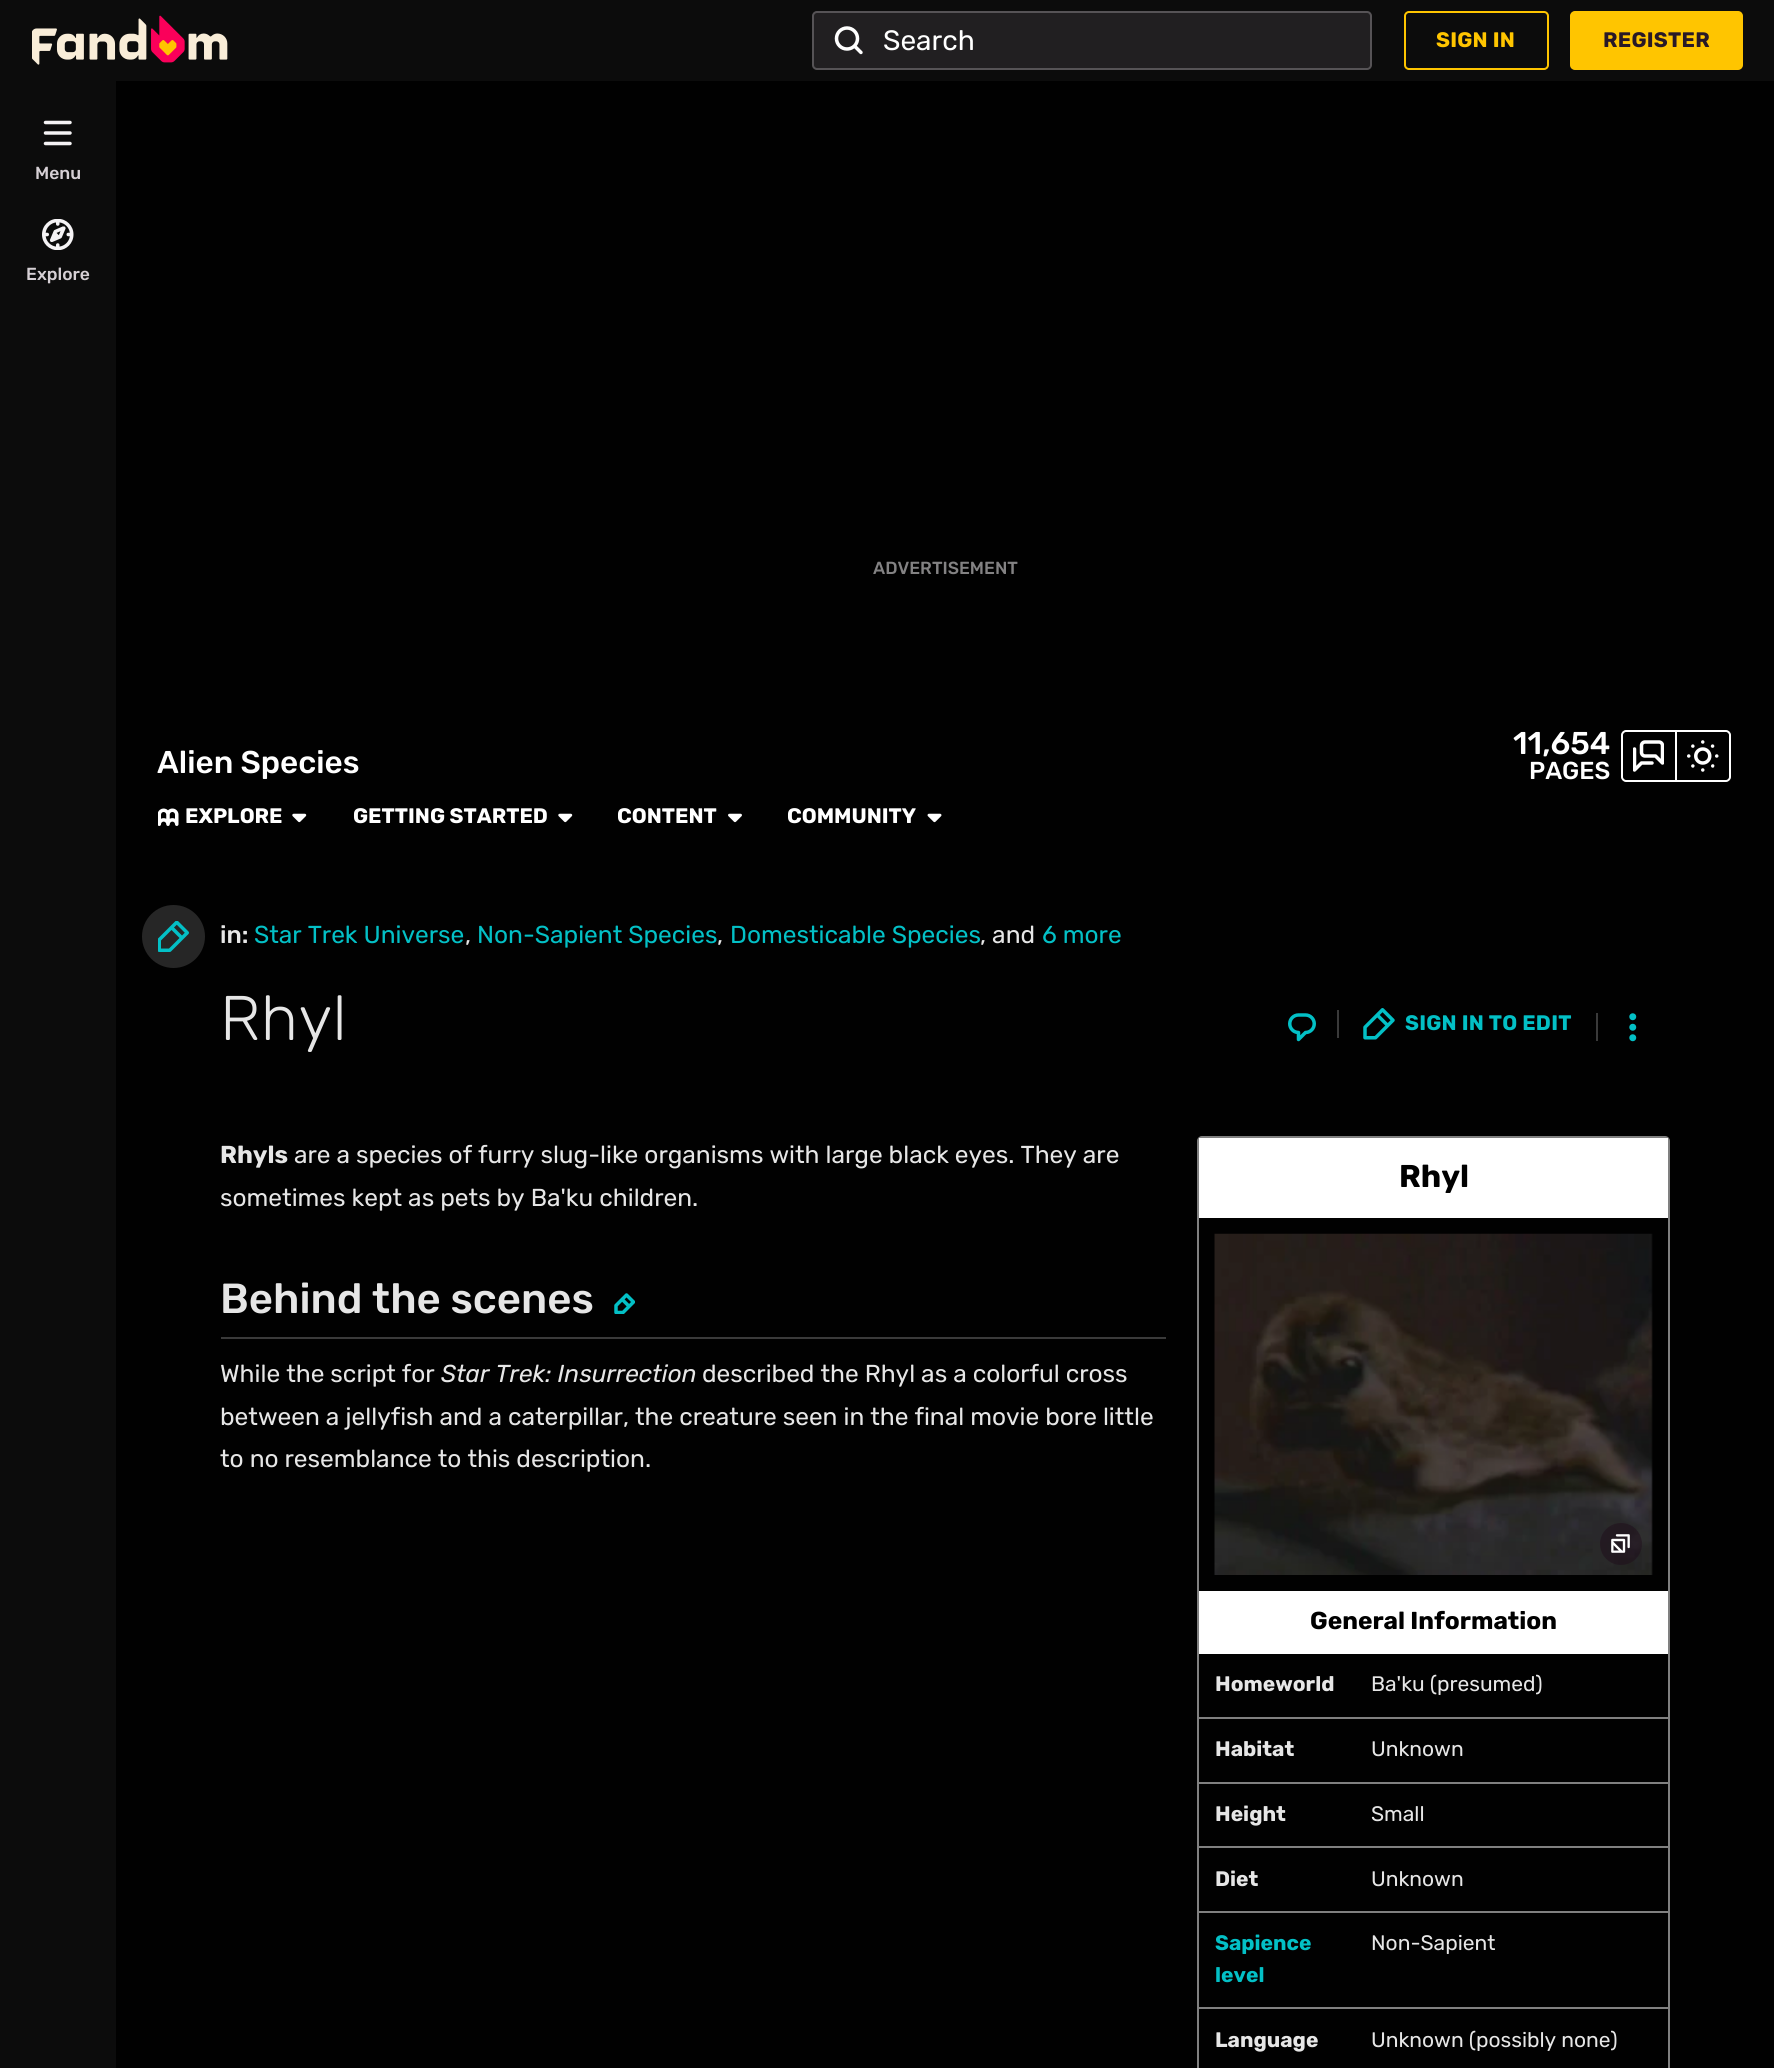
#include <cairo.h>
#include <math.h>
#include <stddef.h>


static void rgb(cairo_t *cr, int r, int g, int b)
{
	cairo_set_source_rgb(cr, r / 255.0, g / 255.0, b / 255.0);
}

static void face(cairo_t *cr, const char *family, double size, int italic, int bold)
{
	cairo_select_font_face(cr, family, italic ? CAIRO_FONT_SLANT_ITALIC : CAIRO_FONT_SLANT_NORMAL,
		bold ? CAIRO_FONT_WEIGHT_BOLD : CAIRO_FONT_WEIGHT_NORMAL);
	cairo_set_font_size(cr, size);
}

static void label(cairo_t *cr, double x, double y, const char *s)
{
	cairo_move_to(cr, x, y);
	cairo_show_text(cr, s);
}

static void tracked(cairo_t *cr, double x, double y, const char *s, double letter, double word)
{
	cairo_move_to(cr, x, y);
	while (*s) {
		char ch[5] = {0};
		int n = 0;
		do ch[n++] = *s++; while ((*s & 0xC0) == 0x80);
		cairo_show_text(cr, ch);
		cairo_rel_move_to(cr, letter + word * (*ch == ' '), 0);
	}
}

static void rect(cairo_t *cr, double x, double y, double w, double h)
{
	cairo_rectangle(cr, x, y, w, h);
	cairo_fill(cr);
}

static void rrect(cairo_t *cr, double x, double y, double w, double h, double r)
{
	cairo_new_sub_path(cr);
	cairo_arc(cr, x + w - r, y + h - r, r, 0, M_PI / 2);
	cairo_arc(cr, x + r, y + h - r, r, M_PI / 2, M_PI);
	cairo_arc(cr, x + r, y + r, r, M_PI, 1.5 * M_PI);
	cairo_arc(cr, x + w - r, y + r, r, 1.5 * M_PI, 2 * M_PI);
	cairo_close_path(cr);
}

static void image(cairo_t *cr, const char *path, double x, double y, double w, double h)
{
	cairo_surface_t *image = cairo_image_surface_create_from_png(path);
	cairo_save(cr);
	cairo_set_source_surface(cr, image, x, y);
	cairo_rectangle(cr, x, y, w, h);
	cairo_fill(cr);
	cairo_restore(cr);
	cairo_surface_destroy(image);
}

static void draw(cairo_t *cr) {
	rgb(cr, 1, 1, 1);
	cairo_paint(cr);
	rgb(cr, 12, 12, 12);
	rect(cr, 0, 0, 1774, 81);
	image(cr, "image0.png", 32, 15, 196, 50);
	rgb(cr, 33, 31, 33);
	rrect(cr, 812, 11, 560, 59, 5);
	cairo_fill(cr);
	rrect(cr, 813, 12, 558, 57, 4);
	cairo_set_source_rgba(cr, 0.961, 0.953, 0.961, 0.25);
	cairo_stroke(cr);
	image(cr, "image1.png", 834, 26, 29, 29);
	face(cr, "Rubik", 28, 0, 0);
	rgb(cr, 255, 255, 255);
	label(cr, 883, 50, "Search");
	rrect(cr, 1405, 12, 143, 57, 4);
	rgb(cr, 255, 197, 0);
	cairo_stroke(cr);
	face(cr, "Rubik", 21, 0, 1);
	tracked(cr, 1436, 47, "SIGN IN", 0.25, 0);
	rrect(cr, 1571, 12, 171, 57, 4);
	cairo_fill_preserve(cr);
	cairo_stroke(cr);
	rgb(cr, 41, 25, 39);
	tracked(cr, 1603, 47, "REGISTER", 0.25, 0);
	rgb(cr, 12, 12, 12);
	rect(cr, 0, 81, 116, 1987);
	image(cr, "image2.png", 43, 120, 29, 26);
	face(cr, "Rubik Medium", 17.5, 0, 0);
	rgb(cr, 214, 208, 213);
	label(cr, 35, 179, "Menu");
	image(cr, "image3.png", 42, 219, 32, 31);
	label(cr, 26, 280, "Explore");
	rgb(cr, 131, 130, 131);
	label(cr, 873, 574, "ADVERTISEMENT");
	face(cr, "Rubik Medium", 31.5, 0, 0);
	rgb(cr, 255, 255, 255);
	label(cr, 157, 773, "Alien Species");
	label(cr, 1513, 754, "11,654");
	face(cr, "Rubik Medium", 24.5, 0, 0);
	label(cr, 1529, 779, "PAGES");
	cairo_new_path(cr);
	cairo_move_to(cr, 1626, 731);
	cairo_line_to(cr, 1676, 731);
	cairo_line_to(cr, 1676, 781);
	cairo_line_to(cr, 1626, 781);
	cairo_curve_to(cr, 1624, 781, 1622, 779, 1622, 777);
	cairo_line_to(cr, 1622, 735);
	cairo_curve_to(cr, 1622, 733, 1624, 731, 1626, 731);
	cairo_close_path(cr);
	cairo_stroke(cr);
	image(cr, "image4.png", 1633, 740, 31, 32);
	cairo_new_path(cr);
	cairo_move_to(cr, 1676, 731);
	cairo_line_to(cr, 1726, 731);
	cairo_curve_to(cr, 1728, 731, 1730, 733, 1730, 735);
	cairo_line_to(cr, 1730, 777);
	cairo_curve_to(cr, 1730, 779, 1728, 781, 1726, 781);
	cairo_line_to(cr, 1676, 781);
	cairo_close_path(cr);
	cairo_stroke(cr);
	image(cr, "image5.png", 1687, 740, 32, 32);
	image(cr, "image6.png", 158, 808, 21, 18);
	face(cr, "Rubik", 21, 0, 1);
	label(cr, 185, 823, "EXPLORE");
	image(cr, "image7.png", 292, 813, 15, 10);
	label(cr, 353, 823, "GETTING STARTED");
	image(cr, "image7.png", 558, 813, 15, 10);
	label(cr, 617, 823, "CONTENT");
	image(cr, "image8.png", 728, 813, 14, 10);
	label(cr, 787, 823, "COMMUNITY");
	image(cr, "image9.png", 927, 813, 15, 10);
	rgb(cr, 38, 38, 38);
	cairo_arc(cr, 173.5, 936.5, 31.5, 0, 2 * M_PI);
	cairo_fill(cr);
	image(cr, "image10.png", 158, 921, 31, 31);
	face(cr, "Rubik Medium", 24.5, 0, 0);
	rgb(cr, 230, 230, 230);
	label(cr, 220, 943, "in:");
	face(cr, "Rubik", 24.5, 0, 0);
	rgb(cr, 3, 192, 198);
	label(cr, 254, 943, "Star Trek Universe");
	rgb(cr, 230, 230, 230);
	label(cr, 465, 943, ",");
	rgb(cr, 3, 192, 198);
	label(cr, 477, 943, "Non-Sapient Species");
	rgb(cr, 230, 230, 230);
	label(cr, 717, 943, ",");
	rgb(cr, 3, 192, 198);
	label(cr, 730, 943, "Domesticable Species");
	rgb(cr, 230, 230, 230);
	label(cr, 980, 943, ", and");
	rgb(cr, 3, 192, 198);
	label(cr, 1042, 943, "6 more");
	face(cr, "Rubik Light", 63, 0, 0);
	rgb(cr, 230, 230, 230);
	tracked(cr, 220, 1040, "Rhyl", 0.5, 0);
	image(cr, "image11.png", 1288, 1013, 28, 29);
	rgb(cr, 58, 58, 58);
	rect(cr, 1337, 1010, 2, 28);
	image(cr, "image12.png", 1363, 1008, 32, 32);
	face(cr, "Rubik", 21, 0, 1);
	rgb(cr, 3, 192, 198);
	tracked(cr, 1405, 1030, "SIGN IN TO EDIT", 0.25, 0);
	rgb(cr, 58, 58, 58);
	rect(cr, 1596, 1013, 2, 28);
	image(cr, "image13.png", 1629, 1013, 8, 29);
	face(cr, "Rubik", 24.5, 0, 1);
	rgb(cr, 230, 230, 230);
	label(cr, 220, 1163, "Rhyls");
	face(cr, "Rubik", 24.5, 0, 0);
	label(cr, 294, 1163, "are a species of furry slug-like organisms with large black eyes. They are");
	label(cr, 220, 1206, "sometimes kept as pets by Ba'ku children.");
	rrect(cr, 1198, 1137, 471, 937, 4);
	rgb(cr, 128, 128, 128);
	cairo_stroke(cr);
	rgb(cr, 255, 255, 255);
	rect(cr, 1199, 1138, 469, 80);
	face(cr, "Rubik", 31.5, 0, 1);
	rgb(cr, 0, 0, 0);
	label(cr, 1399, 1187, "Rhyl");
	image(cr, "image14.png", 1214, 1233, 439, 342);
	cairo_set_source_rgba(cr, 0.118, 0.047, 0.106, 0.5);
	cairo_arc(cr, 1621, 1544, 21, 0, 2 * M_PI);
	cairo_fill(cr);
	image(cr, "image15.png", 1611, 1534, 19, 19);
	rgb(cr, 255, 255, 255);
	rect(cr, 1199, 1591, 469, 63);
	face(cr, "Rubik", 24.5, 0, 1);
	rgb(cr, 0, 0, 0);
	label(cr, 1310, 1629, "General Information");
	face(cr, "Rubik", 21, 0, 1);
	rgb(cr, 230, 230, 230);
	label(cr, 1215, 1691, "Homeworld");
	face(cr, "Rubik", 21, 0, 0);
	label(cr, 1371, 1691, "Ba'ku (presumed)");
	rgb(cr, 128, 128, 128);
	rect(cr, 1199, 1717, 469, 2);
	face(cr, "Rubik", 21, 0, 1);
	rgb(cr, 230, 230, 230);
	label(cr, 1215, 1756, "Habitat");
	face(cr, "Rubik", 21, 0, 0);
	label(cr, 1371, 1756, "Unknown");
	rgb(cr, 128, 128, 128);
	rect(cr, 1199, 1782, 469, 2);
	face(cr, "Rubik", 21, 0, 1);
	rgb(cr, 230, 230, 230);
	label(cr, 1215, 1821, "Height");
	face(cr, "Rubik", 21, 0, 0);
	label(cr, 1371, 1821, "Small");
	rgb(cr, 128, 128, 128);
	rect(cr, 1199, 1846, 469, 2);
	face(cr, "Rubik", 21, 0, 1);
	rgb(cr, 230, 230, 230);
	label(cr, 1215, 1886, "Diet");
	face(cr, "Rubik", 21, 0, 0);
	label(cr, 1371, 1886, "Unknown");
	rgb(cr, 128, 128, 128);
	rect(cr, 1199, 1911, 469, 2);
	face(cr, "Rubik", 21, 0, 1);
	rgb(cr, 3, 192, 198);
	label(cr, 1215, 1950, "Sapience");
	label(cr, 1215, 1982, "level");
	face(cr, "Rubik", 21, 0, 0);
	rgb(cr, 230, 230, 230);
	label(cr, 1371, 1950, "Non-Sapient");
	rgb(cr, 128, 128, 128);
	rect(cr, 1199, 2007, 469, 2);
	face(cr, "Rubik", 21, 0, 1);
	rgb(cr, 230, 230, 230);
	label(cr, 1215, 2047, "Language");
	face(cr, "Rubik", 21, 0, 0);
	label(cr, 1371, 2047, "Unknown (possibly none)");
	rgb(cr, 58, 58, 58);
	rect(cr, 221, 1337, 945, 2);
	face(cr, "Rubik Medium", 42, 0, 0);
	rgb(cr, 230, 230, 230);
	label(cr, 220, 1313, "Behind the scenes");
	image(cr, "image16.png", 614, 1293, 21, 21);
	face(cr, "Rubik", 24.5, 0, 0);
	label(cr, 220, 1382, "While the script for");
	face(cr, "Rubik", 24.5, 1, 0);
	label(cr, 441, 1382, "Star Trek: Insurrection");
	face(cr, "Rubik", 24.5, 0, 0);
	label(cr, 702, 1382, "described the Rhyl as a colorful cross");
	label(cr, 220, 1425, "between a jellyfish and a caterpillar, the creature seen in the final movie bore little");
	label(cr, 220, 1467, "to no resemblance to this description.");
}

int main(void) {
	cairo_surface_t *surface = cairo_image_surface_create(CAIRO_FORMAT_RGB24, 1774, 2068);
	cairo_t *cr = cairo_create(surface);
	cairo_font_options_t *options = cairo_font_options_create();
	cairo_font_options_set_hint_metrics(options, CAIRO_HINT_METRICS_OFF);
	cairo_font_options_set_hint_style(options, CAIRO_HINT_STYLE_NONE);
	cairo_set_font_options(cr, options);
	cairo_set_miter_limit(cr, 4);
	draw(cr);
	cairo_surface_write_to_png(surface, "render.png");
	cairo_font_options_destroy(options);
	cairo_destroy(cr);
	cairo_surface_destroy(surface);
	return 0;
}
